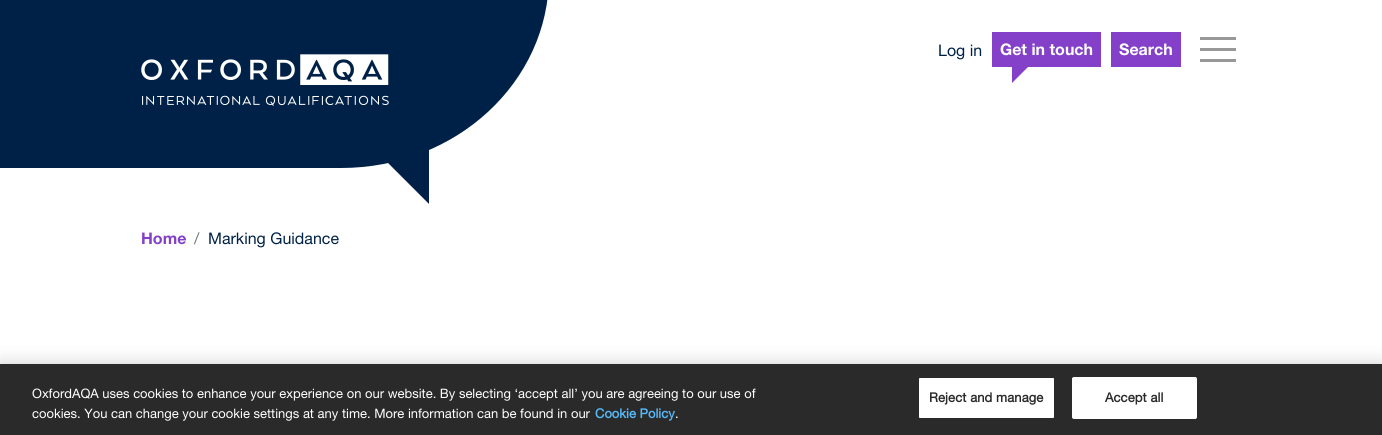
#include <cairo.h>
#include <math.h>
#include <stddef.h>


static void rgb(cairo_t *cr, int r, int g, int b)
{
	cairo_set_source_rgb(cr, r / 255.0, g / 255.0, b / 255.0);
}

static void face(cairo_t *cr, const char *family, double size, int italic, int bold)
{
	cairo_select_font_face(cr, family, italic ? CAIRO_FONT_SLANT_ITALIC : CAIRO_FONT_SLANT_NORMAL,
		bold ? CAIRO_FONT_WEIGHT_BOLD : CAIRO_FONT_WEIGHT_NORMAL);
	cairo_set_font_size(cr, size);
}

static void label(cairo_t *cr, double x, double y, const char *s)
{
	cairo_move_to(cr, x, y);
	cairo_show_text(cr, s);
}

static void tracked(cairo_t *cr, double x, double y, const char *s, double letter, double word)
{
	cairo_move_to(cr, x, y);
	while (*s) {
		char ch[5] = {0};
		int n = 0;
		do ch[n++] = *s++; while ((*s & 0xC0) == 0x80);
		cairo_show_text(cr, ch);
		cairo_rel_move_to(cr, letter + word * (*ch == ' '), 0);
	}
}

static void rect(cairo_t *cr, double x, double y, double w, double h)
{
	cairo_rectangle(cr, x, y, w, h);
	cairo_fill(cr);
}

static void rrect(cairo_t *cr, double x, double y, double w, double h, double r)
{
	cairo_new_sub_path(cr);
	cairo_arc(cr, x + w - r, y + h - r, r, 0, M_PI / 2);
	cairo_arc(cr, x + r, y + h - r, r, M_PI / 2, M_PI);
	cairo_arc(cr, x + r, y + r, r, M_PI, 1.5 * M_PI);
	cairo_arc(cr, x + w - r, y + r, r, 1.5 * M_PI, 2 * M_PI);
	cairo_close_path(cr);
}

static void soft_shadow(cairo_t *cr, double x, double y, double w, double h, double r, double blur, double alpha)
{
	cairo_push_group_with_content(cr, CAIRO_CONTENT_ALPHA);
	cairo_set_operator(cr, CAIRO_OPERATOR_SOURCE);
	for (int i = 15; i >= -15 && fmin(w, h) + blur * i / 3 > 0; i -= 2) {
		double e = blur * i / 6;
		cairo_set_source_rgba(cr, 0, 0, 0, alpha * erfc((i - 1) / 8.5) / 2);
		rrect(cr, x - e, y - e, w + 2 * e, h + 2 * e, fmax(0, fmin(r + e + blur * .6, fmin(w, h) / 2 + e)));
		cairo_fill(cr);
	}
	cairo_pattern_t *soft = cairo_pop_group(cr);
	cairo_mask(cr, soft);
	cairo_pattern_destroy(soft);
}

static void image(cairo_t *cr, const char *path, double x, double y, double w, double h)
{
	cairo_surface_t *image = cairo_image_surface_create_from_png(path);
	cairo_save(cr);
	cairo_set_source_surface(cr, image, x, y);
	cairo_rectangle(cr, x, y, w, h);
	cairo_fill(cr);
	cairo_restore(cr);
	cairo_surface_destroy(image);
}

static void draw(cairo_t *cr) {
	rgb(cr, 255, 255, 255);
	cairo_paint(cr);
	rgb(cr, 0, 33, 71);
	cairo_new_path(cr);
	cairo_move_to(cr, -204, -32);
	cairo_line_to(cr, 549, -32);
	cairo_line_to(cr, 549, -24);
	cairo_curve_to(cr, 549, 82, 456, 168, 341, 168);
	cairo_line_to(cr, -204, 168);
	cairo_close_path(cr);
	cairo_fill(cr);
	image(cr, "image0.png", 141, 54, 248, 52);
	cairo_new_path(cr);
	cairo_move_to(cr, 429, 108);
	cairo_line_to(cr, 429, 204);
	cairo_line_to(cr, 381, 156);
	cairo_close_path(cr);
	cairo_fill(cr);
	face(cr, "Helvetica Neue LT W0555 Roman", 16, 0, 0);
	label(cr, 938, 56, "Log in");
	rgb(cr, 132, 64, 200);
	rect(cr, 992, 32, 109, 35);
	face(cr, "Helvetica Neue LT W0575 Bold", 16, 0, 1);
	rgb(cr, 255, 255, 255);
	label(cr, 1000, 55, "Get in touch");
	rgb(cr, 132, 64, 200);
	cairo_new_path(cr);
	cairo_move_to(cr, 1012, 67);
	cairo_line_to(cr, 1028, 67);
	cairo_line_to(cr, 1012, 83);
	cairo_close_path(cr);
	cairo_fill(cr);
	rect(cr, 1111, 32, 70, 35);
	rgb(cr, 255, 255, 255);
	label(cr, 1119, 55, "Search");
	rgb(cr, 152, 152, 152);
	rect(cr, 1200, 37, 36, 3);
	rect(cr, 1200, 48, 36, 3);
	rect(cr, 1200, 59, 36, 3);
	rgb(cr, 132, 64, 200);
	label(cr, 141, 244, "Home");
	face(cr, "Helvetica Neue LT W0555 Roman", 16, 0, 0);
	rgb(cr, 108, 117, 125);
	label(cr, 194, 244, "/");
	rgb(cr, 0, 33, 71);
	label(cr, 208, 244, "Marking Guidance");
	rgb(cr, 0, 0, 0);
	soft_shadow(cr, 0, 364, 1382, 71, 0, 9, 0.2);
	rgb(cr, 42, 42, 42);
	rect(cr, 0, 364, 1382, 71);
	face(cr, "Helvetica Neue LT W0555 Roman", 13, 0, 0);
	rgb(cr, 255, 255, 255);
	label(cr, 32, 398, "OxfordAQA uses cookies to enhance your experience on our website. By selecting ‘accept all’ you are agreeing to our use of");
	label(cr, 32, 418, "cookies. You can change your cookie settings at any time. More information can be found in our");
	face(cr, "Helvetica Neue LT W0555 Roman", 13, 0, 1);
	rgb(cr, 86, 185, 248);
	label(cr, 595, 418, "Cookie Policy");
	face(cr, "Helvetica Neue LT W0555 Roman", 13, 0, 0);
	rgb(cr, 255, 255, 255);
	label(cr, 675, 418, ".");
	rrect(cr, 918.5, 377.5, 136, 41, 1.5);
	cairo_fill_preserve(cr);
	rgb(cr, 42, 42, 42);
	cairo_set_line_width(cr, 1);
	cairo_stroke(cr);
	face(cr, "Helvetica Neue LT W0555 Roman", 13, 0, 1);
	tracked(cr, 929, 402, "Reject and manage", 0.1, 0);
	rgb(cr, 255, 255, 255);
	rrect(cr, 1072.5, 377.5, 124, 41, 1.5);
	cairo_fill_preserve(cr);
	cairo_stroke(cr);
	rgb(cr, 42, 42, 42);
	tracked(cr, 1105, 402, "Accept all", 0.1, 0);
}

int main(void) {
	cairo_surface_t *surface = cairo_image_surface_create(CAIRO_FORMAT_RGB24, 1382, 435);
	cairo_t *cr = cairo_create(surface);
	cairo_font_options_t *options = cairo_font_options_create();
	cairo_font_options_set_hint_metrics(options, CAIRO_HINT_METRICS_OFF);
	cairo_font_options_set_hint_style(options, CAIRO_HINT_STYLE_NONE);
	cairo_set_font_options(cr, options);
	cairo_set_miter_limit(cr, 4);
	draw(cr);
	cairo_surface_write_to_png(surface, "render.png");
	cairo_font_options_destroy(options);
	cairo_destroy(cr);
	cairo_surface_destroy(surface);
	return 0;
}
